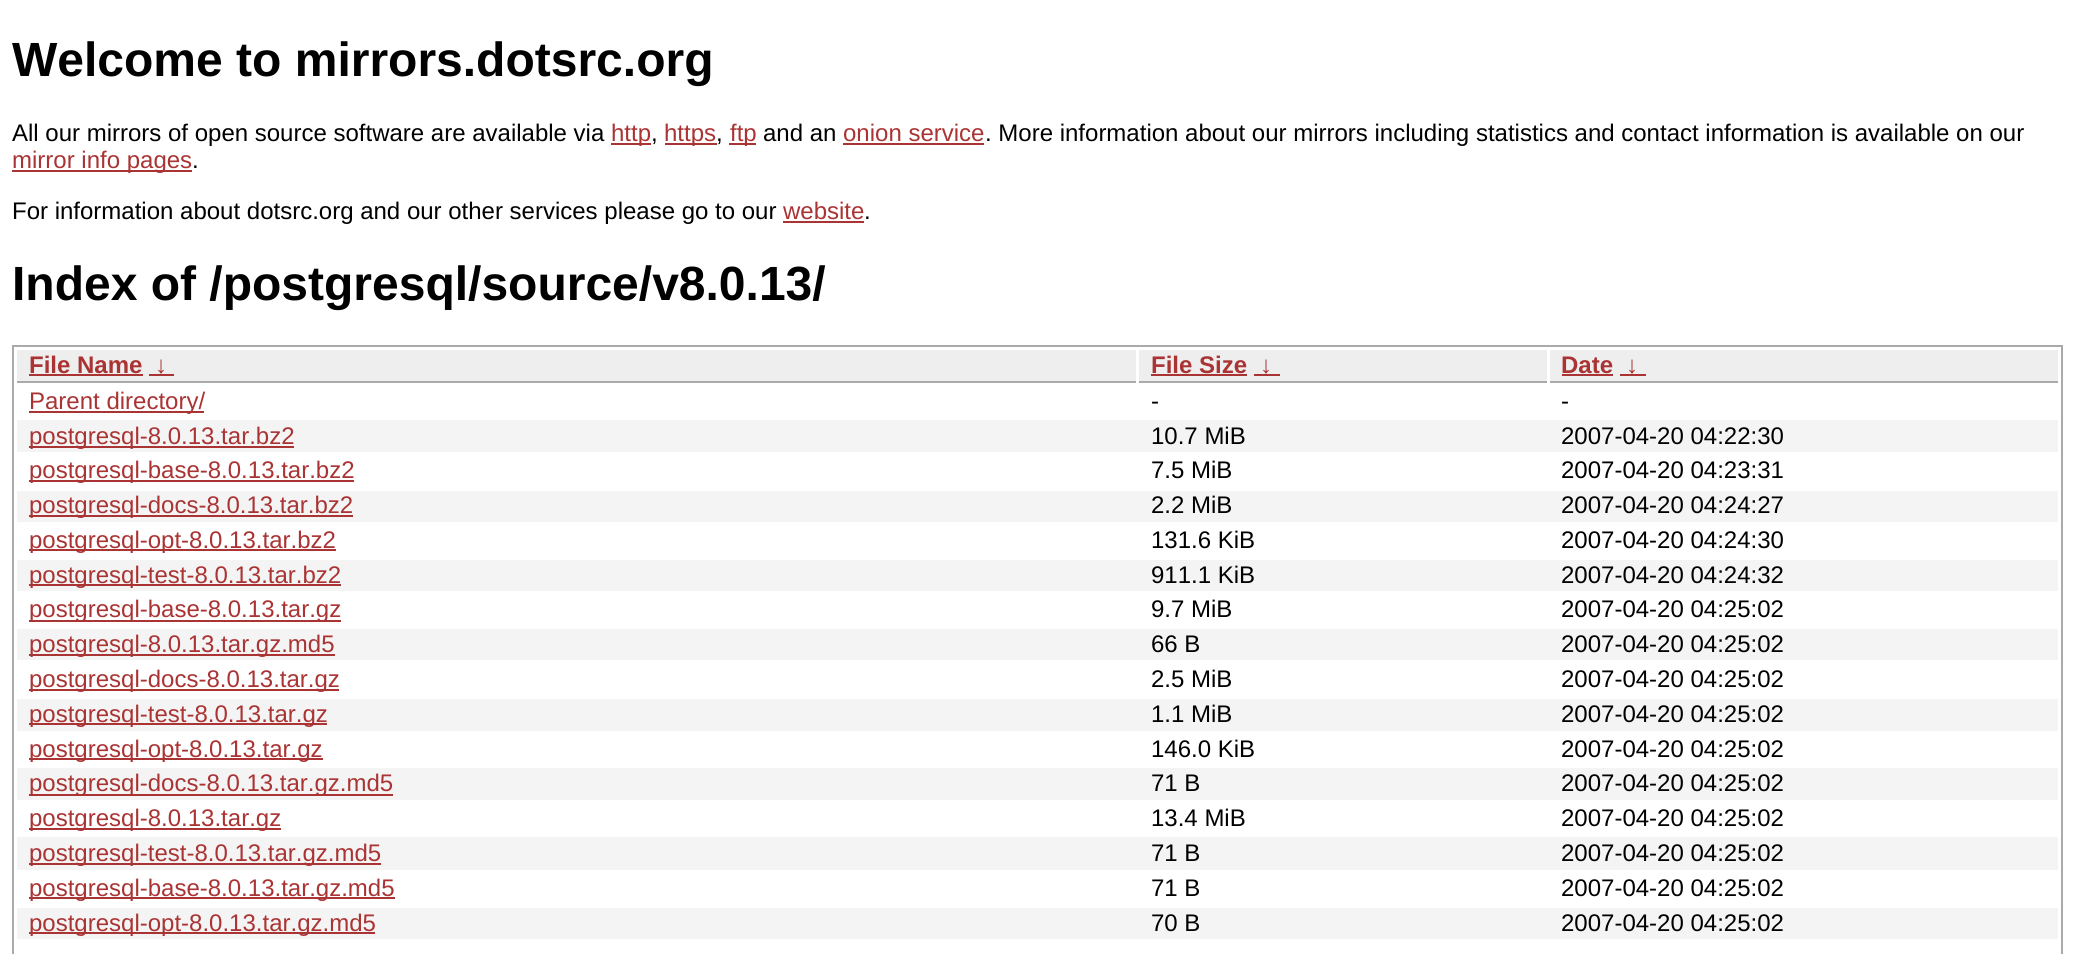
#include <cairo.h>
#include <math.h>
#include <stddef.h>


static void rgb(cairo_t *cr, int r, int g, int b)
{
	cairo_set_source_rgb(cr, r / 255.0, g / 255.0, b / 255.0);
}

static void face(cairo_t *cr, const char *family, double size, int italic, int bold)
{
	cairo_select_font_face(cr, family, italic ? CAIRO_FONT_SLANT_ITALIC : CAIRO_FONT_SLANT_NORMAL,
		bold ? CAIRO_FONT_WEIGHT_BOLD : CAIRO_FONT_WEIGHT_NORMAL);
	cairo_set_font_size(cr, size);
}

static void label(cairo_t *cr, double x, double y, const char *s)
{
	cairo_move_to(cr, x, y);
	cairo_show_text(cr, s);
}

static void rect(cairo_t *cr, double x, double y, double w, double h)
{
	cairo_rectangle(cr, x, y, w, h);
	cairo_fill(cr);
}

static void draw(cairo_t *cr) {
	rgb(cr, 255, 255, 255);
	cairo_paint(cr);
	face(cr, "Liberation Sans", 48, 0, 1);
	rgb(cr, 0, 0, 0);
	label(cr, 12, 76, "Welcome to mirrors.dotsrc.org");
	face(cr, "Liberation Sans", 24, 0, 0);
	label(cr, 12, 141, "All our mirrors of open source software are available via");
	rgb(cr, 170, 51, 51);
	rect(cr, 611, 143, 40, 2);
	label(cr, 611, 141, "http");
	rgb(cr, 0, 0, 0);
	label(cr, 651, 141, ",");
	rgb(cr, 170, 51, 51);
	rect(cr, 665, 143, 52, 2);
	label(cr, 664, 141, "https");
	rgb(cr, 0, 0, 0);
	label(cr, 716, 141, ",");
	rgb(cr, 170, 51, 51);
	rect(cr, 729, 143, 27, 2);
	label(cr, 730, 141, "ftp");
	rgb(cr, 0, 0, 0);
	label(cr, 763, 141, "and an");
	rgb(cr, 170, 51, 51);
	label(cr, 843, 141, "onion service");
	rect(cr, 843, 143, 141, 2);
	rgb(cr, 0, 0, 0);
	label(cr, 985, 141, ". More information about our mirrors including statistics and contact information is available on our");
	rgb(cr, 170, 51, 51);
	rect(cr, 12, 170, 180, 2);
	label(cr, 12, 168, "mirror info pages");
	rgb(cr, 0, 0, 0);
	label(cr, 192, 168, ".");
	label(cr, 12, 219, "For information about dotsrc.org and our other services please go to our");
	rgb(cr, 170, 51, 51);
	label(cr, 783, 219, "website");
	rect(cr, 783, 221, 81, 2);
	rgb(cr, 0, 0, 0);
	label(cr, 864, 219, ".");
	face(cr, "Liberation Sans", 48, 0, 1);
	label(cr, 12, 300, "Index of /postgresql/source/v8.0.13/");
	cairo_rectangle(cr, 13, 346, 2049, 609);
	rgb(cr, 170, 170, 170);
	cairo_stroke(cr);
	rgb(cr, 238, 238, 238);
	rect(cr, 17, 350, 1119, 31);
	rgb(cr, 170, 170, 170);
	rect(cr, 17, 381, 1119, 2);
	face(cr, "Liberation Sans", 24, 0, 1);
	rgb(cr, 170, 51, 51);
	label(cr, 29, 373, "File Name");
	rect(cr, 29, 374, 114, 2);
	label(cr, 155, 373, "↓");
	rect(cr, 149, 374, 25, 2);
	rgb(cr, 238, 238, 238);
	rect(cr, 1139, 350, 408, 31);
	rgb(cr, 170, 170, 170);
	rect(cr, 1139, 381, 408, 2);
	rgb(cr, 170, 51, 51);
	label(cr, 1151, 373, "File Size");
	rect(cr, 1151, 374, 96, 2);
	label(cr, 1260, 373, "↓");
	rect(cr, 1254, 374, 26, 2);
	rgb(cr, 238, 238, 238);
	rect(cr, 1550, 350, 508, 31);
	rgb(cr, 170, 170, 170);
	rect(cr, 1550, 381, 508, 2);
	rgb(cr, 170, 51, 51);
	label(cr, 1561, 373, "Date");
	rect(cr, 1562, 374, 51, 2);
	label(cr, 1626, 373, "↓");
	rect(cr, 1620, 374, 26, 2);
	rect(cr, 29, 411, 175, 2);
	face(cr, "Liberation Sans", 24, 0, 0);
	label(cr, 29, 409, "Parent directory/");
	rgb(cr, 0, 0, 0);
	label(cr, 1151, 409, "-");
	label(cr, 1561, 409, "-");
	rgb(cr, 244, 244, 244);
	rect(cr, 17, 420, 2041, 32);
	rgb(cr, 170, 51, 51);
	rect(cr, 29, 446, 265, 2);
	label(cr, 29, 444, "postgresql-8.0.13.tar.bz2");
	rgb(cr, 0, 0, 0);
	label(cr, 1151, 444, "10.7 MiB");
	label(cr, 1561, 444, "2007-04-20 04:22:30");
	rgb(cr, 170, 51, 51);
	rect(cr, 29, 480, 325, 2);
	label(cr, 29, 478, "postgresql-base-8.0.13.tar.bz2");
	rgb(cr, 0, 0, 0);
	label(cr, 1151, 478, "7.5 MiB");
	label(cr, 1561, 478, "2007-04-20 04:23:31");
	rgb(cr, 244, 244, 244);
	rect(cr, 17, 491, 2041, 31);
	rgb(cr, 170, 51, 51);
	rect(cr, 29, 515, 324, 2);
	label(cr, 29, 513, "postgresql-docs-8.0.13.tar.bz2");
	rgb(cr, 0, 0, 0);
	label(cr, 1151, 513, "2.2 MiB");
	label(cr, 1561, 513, "2007-04-20 04:24:27");
	rgb(cr, 170, 51, 51);
	rect(cr, 29, 549, 307, 2);
	label(cr, 29, 548, "postgresql-opt-8.0.13.tar.bz2");
	rgb(cr, 0, 0, 0);
	label(cr, 1151, 548, "131.6 KiB");
	label(cr, 1561, 548, "2007-04-20 04:24:30");
	rgb(cr, 244, 244, 244);
	rect(cr, 17, 560, 2041, 31);
	rgb(cr, 170, 51, 51);
	rect(cr, 29, 584, 312, 2);
	label(cr, 29, 583, "postgresql-test-8.0.13.tar.bz2");
	rgb(cr, 0, 0, 0);
	label(cr, 1151, 583, "911.1 KiB");
	label(cr, 1561, 583, "2007-04-20 04:24:32");
	rgb(cr, 170, 51, 51);
	rect(cr, 29, 620, 312, 2);
	label(cr, 29, 617, "postgresql-base-8.0.13.tar.gz");
	rgb(cr, 0, 0, 0);
	label(cr, 1151, 617, "9.7 MiB");
	label(cr, 1561, 617, "2007-04-20 04:25:02");
	rgb(cr, 244, 244, 244);
	rect(cr, 17, 629, 2041, 31);
	rgb(cr, 170, 51, 51);
	rect(cr, 29, 654, 306, 2);
	label(cr, 29, 652, "postgresql-8.0.13.tar.gz.md5");
	rgb(cr, 0, 0, 0);
	label(cr, 1151, 652, "66 B");
	label(cr, 1561, 652, "2007-04-20 04:25:02");
	rgb(cr, 170, 51, 51);
	rect(cr, 29, 689, 310, 2);
	label(cr, 29, 687, "postgresql-docs-8.0.13.tar.gz");
	rgb(cr, 0, 0, 0);
	label(cr, 1151, 687, "2.5 MiB");
	label(cr, 1561, 687, "2007-04-20 04:25:02");
	rgb(cr, 244, 244, 244);
	rect(cr, 17, 699, 2041, 32);
	rgb(cr, 170, 51, 51);
	rect(cr, 29, 723, 298, 2);
	label(cr, 29, 722, "postgresql-test-8.0.13.tar.gz");
	rgb(cr, 0, 0, 0);
	label(cr, 1151, 722, "1.1 MiB");
	label(cr, 1561, 722, "2007-04-20 04:25:02");
	rgb(cr, 170, 51, 51);
	rect(cr, 29, 758, 294, 2);
	label(cr, 29, 757, "postgresql-opt-8.0.13.tar.gz");
	rgb(cr, 0, 0, 0);
	label(cr, 1151, 757, "146.0 KiB");
	label(cr, 1561, 757, "2007-04-20 04:25:02");
	rgb(cr, 244, 244, 244);
	rect(cr, 17, 768, 2041, 32);
	rgb(cr, 170, 51, 51);
	rect(cr, 29, 794, 364, 2);
	label(cr, 29, 791, "postgresql-docs-8.0.13.tar.gz.md5");
	rgb(cr, 0, 0, 0);
	label(cr, 1151, 791, "71 B");
	label(cr, 1561, 791, "2007-04-20 04:25:02");
	rgb(cr, 170, 51, 51);
	rect(cr, 29, 828, 252, 2);
	label(cr, 29, 826, "postgresql-8.0.13.tar.gz");
	rgb(cr, 0, 0, 0);
	label(cr, 1151, 826, "13.4 MiB");
	label(cr, 1561, 826, "2007-04-20 04:25:02");
	rgb(cr, 244, 244, 244);
	rect(cr, 17, 837, 2041, 33);
	rgb(cr, 170, 51, 51);
	rect(cr, 29, 863, 352, 2);
	label(cr, 29, 861, "postgresql-test-8.0.13.tar.gz.md5");
	rgb(cr, 0, 0, 0);
	label(cr, 1151, 861, "71 B");
	label(cr, 1561, 861, "2007-04-20 04:25:02");
	rgb(cr, 170, 51, 51);
	rect(cr, 29, 897, 366, 2);
	label(cr, 29, 896, "postgresql-base-8.0.13.tar.gz.md5");
	rgb(cr, 0, 0, 0);
	label(cr, 1151, 896, "71 B");
	label(cr, 1561, 896, "2007-04-20 04:25:02");
	rgb(cr, 244, 244, 244);
	rect(cr, 17, 908, 2041, 31);
	rgb(cr, 170, 51, 51);
	rect(cr, 29, 932, 346, 2);
	label(cr, 29, 931, "postgresql-opt-8.0.13.tar.gz.md5");
	rgb(cr, 0, 0, 0);
	label(cr, 1151, 931, "70 B");
	label(cr, 1561, 931, "2007-04-20 04:25:02");
}

int main(void) {
	cairo_surface_t *surface = cairo_image_surface_create(CAIRO_FORMAT_RGB24, 2074, 954);
	cairo_t *cr = cairo_create(surface);
	cairo_font_options_t *options = cairo_font_options_create();
	cairo_font_options_set_hint_metrics(options, CAIRO_HINT_METRICS_OFF);
	cairo_font_options_set_hint_style(options, CAIRO_HINT_STYLE_NONE);
	cairo_set_font_options(cr, options);
	cairo_set_miter_limit(cr, 4);
	draw(cr);
	cairo_surface_write_to_png(surface, "render.png");
	cairo_font_options_destroy(options);
	cairo_destroy(cr);
	cairo_surface_destroy(surface);
	return 0;
}
